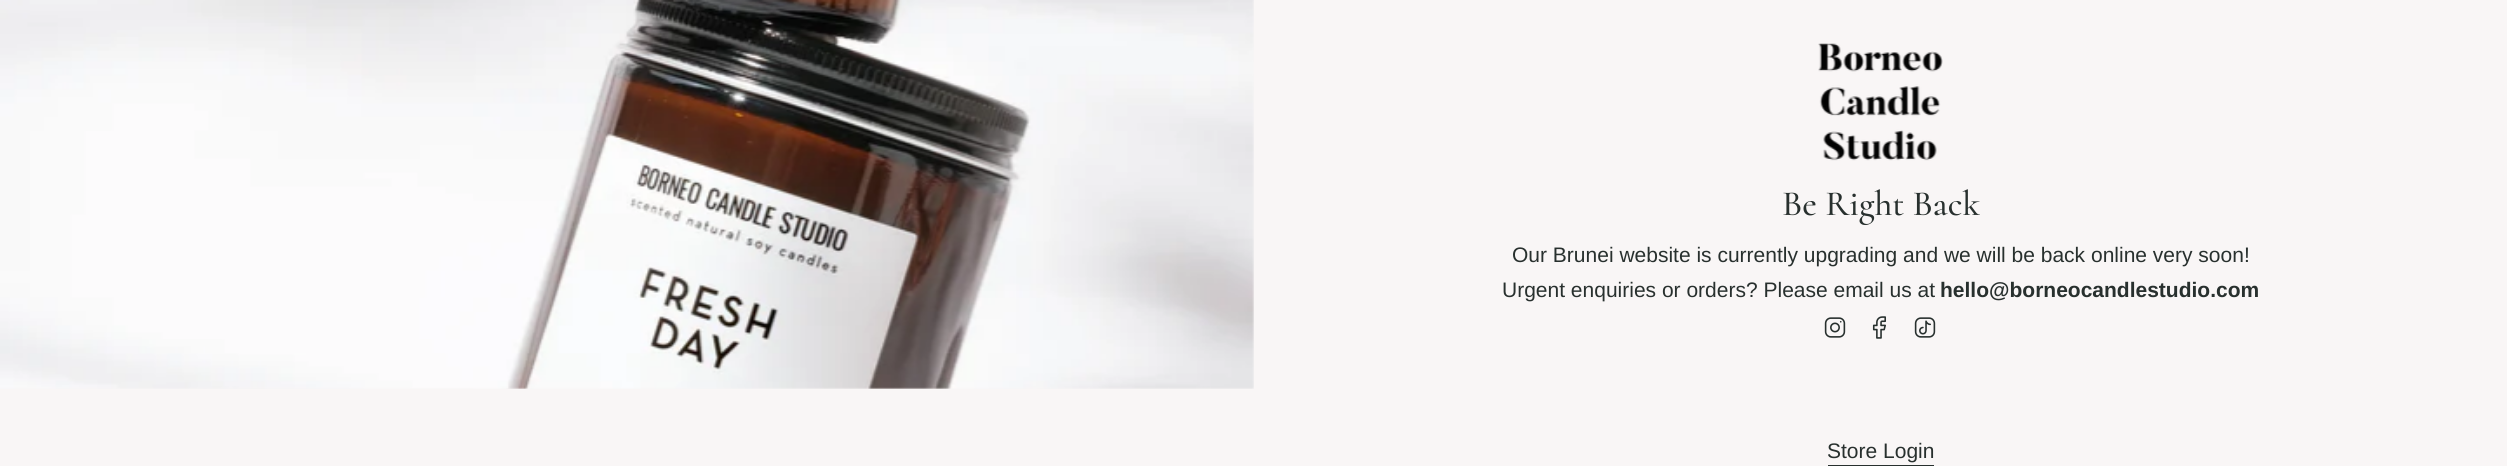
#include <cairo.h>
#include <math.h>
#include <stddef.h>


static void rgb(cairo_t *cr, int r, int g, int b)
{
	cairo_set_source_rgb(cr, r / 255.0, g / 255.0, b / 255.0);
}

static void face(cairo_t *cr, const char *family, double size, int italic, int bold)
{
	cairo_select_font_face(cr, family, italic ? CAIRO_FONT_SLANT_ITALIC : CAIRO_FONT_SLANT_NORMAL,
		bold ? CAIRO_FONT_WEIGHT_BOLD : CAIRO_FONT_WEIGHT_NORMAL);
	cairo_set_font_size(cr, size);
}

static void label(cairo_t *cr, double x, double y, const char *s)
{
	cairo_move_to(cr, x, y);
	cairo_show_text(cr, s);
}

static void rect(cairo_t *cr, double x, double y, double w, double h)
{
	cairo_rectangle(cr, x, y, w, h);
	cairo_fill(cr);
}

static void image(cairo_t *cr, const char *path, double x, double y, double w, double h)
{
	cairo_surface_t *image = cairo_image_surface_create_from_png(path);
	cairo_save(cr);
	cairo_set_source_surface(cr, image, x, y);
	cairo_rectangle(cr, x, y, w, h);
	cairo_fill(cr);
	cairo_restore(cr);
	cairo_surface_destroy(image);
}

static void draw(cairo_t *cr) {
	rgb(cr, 249, 246, 246);
	cairo_paint(cr);
	image(cr, "image0.png", 0, 0, 1254, 389);
	image(cr, "image1.png", 1818, 43, 125, 118);
	face(cr, "Cormorant Medium", 35.5, 0, 0);
	rgb(cr, 40, 48, 46);
	label(cr, 1782, 215, "Be Right Back");
	face(cr, "Liberation Sans", 21, 0, 0);
	label(cr, 1512, 262, "Our Brunei website is currently upgrading and we will be back online very soon!");
	label(cr, 1502, 297, "Urgent enquiries or orders? Please email us at");
	face(cr, "Liberation Sans", 21, 0, 1);
	label(cr, 1940, 297, "hello@borneocandlestudio.com");
	image(cr, "image2.png", 1824, 317, 22, 21);
	image(cr, "image3.png", 1872, 316, 14, 23);
	image(cr, "image4.png", 1914, 317, 22, 21);
	face(cr, "Liberation Sans", 21, 0, 0);
	label(cr, 1827, 458, "Store Login");
	rect(cr, 1828, 465, 106, 1);
}

int main(void) {
	cairo_surface_t *surface = cairo_image_surface_create(CAIRO_FORMAT_RGB24, 2507, 466);
	cairo_t *cr = cairo_create(surface);
	cairo_font_options_t *options = cairo_font_options_create();
	cairo_font_options_set_hint_metrics(options, CAIRO_HINT_METRICS_OFF);
	cairo_font_options_set_hint_style(options, CAIRO_HINT_STYLE_NONE);
	cairo_set_font_options(cr, options);
	cairo_set_miter_limit(cr, 4);
	draw(cr);
	cairo_surface_write_to_png(surface, "render.png");
	cairo_font_options_destroy(options);
	cairo_destroy(cr);
	cairo_surface_destroy(surface);
	return 0;
}
